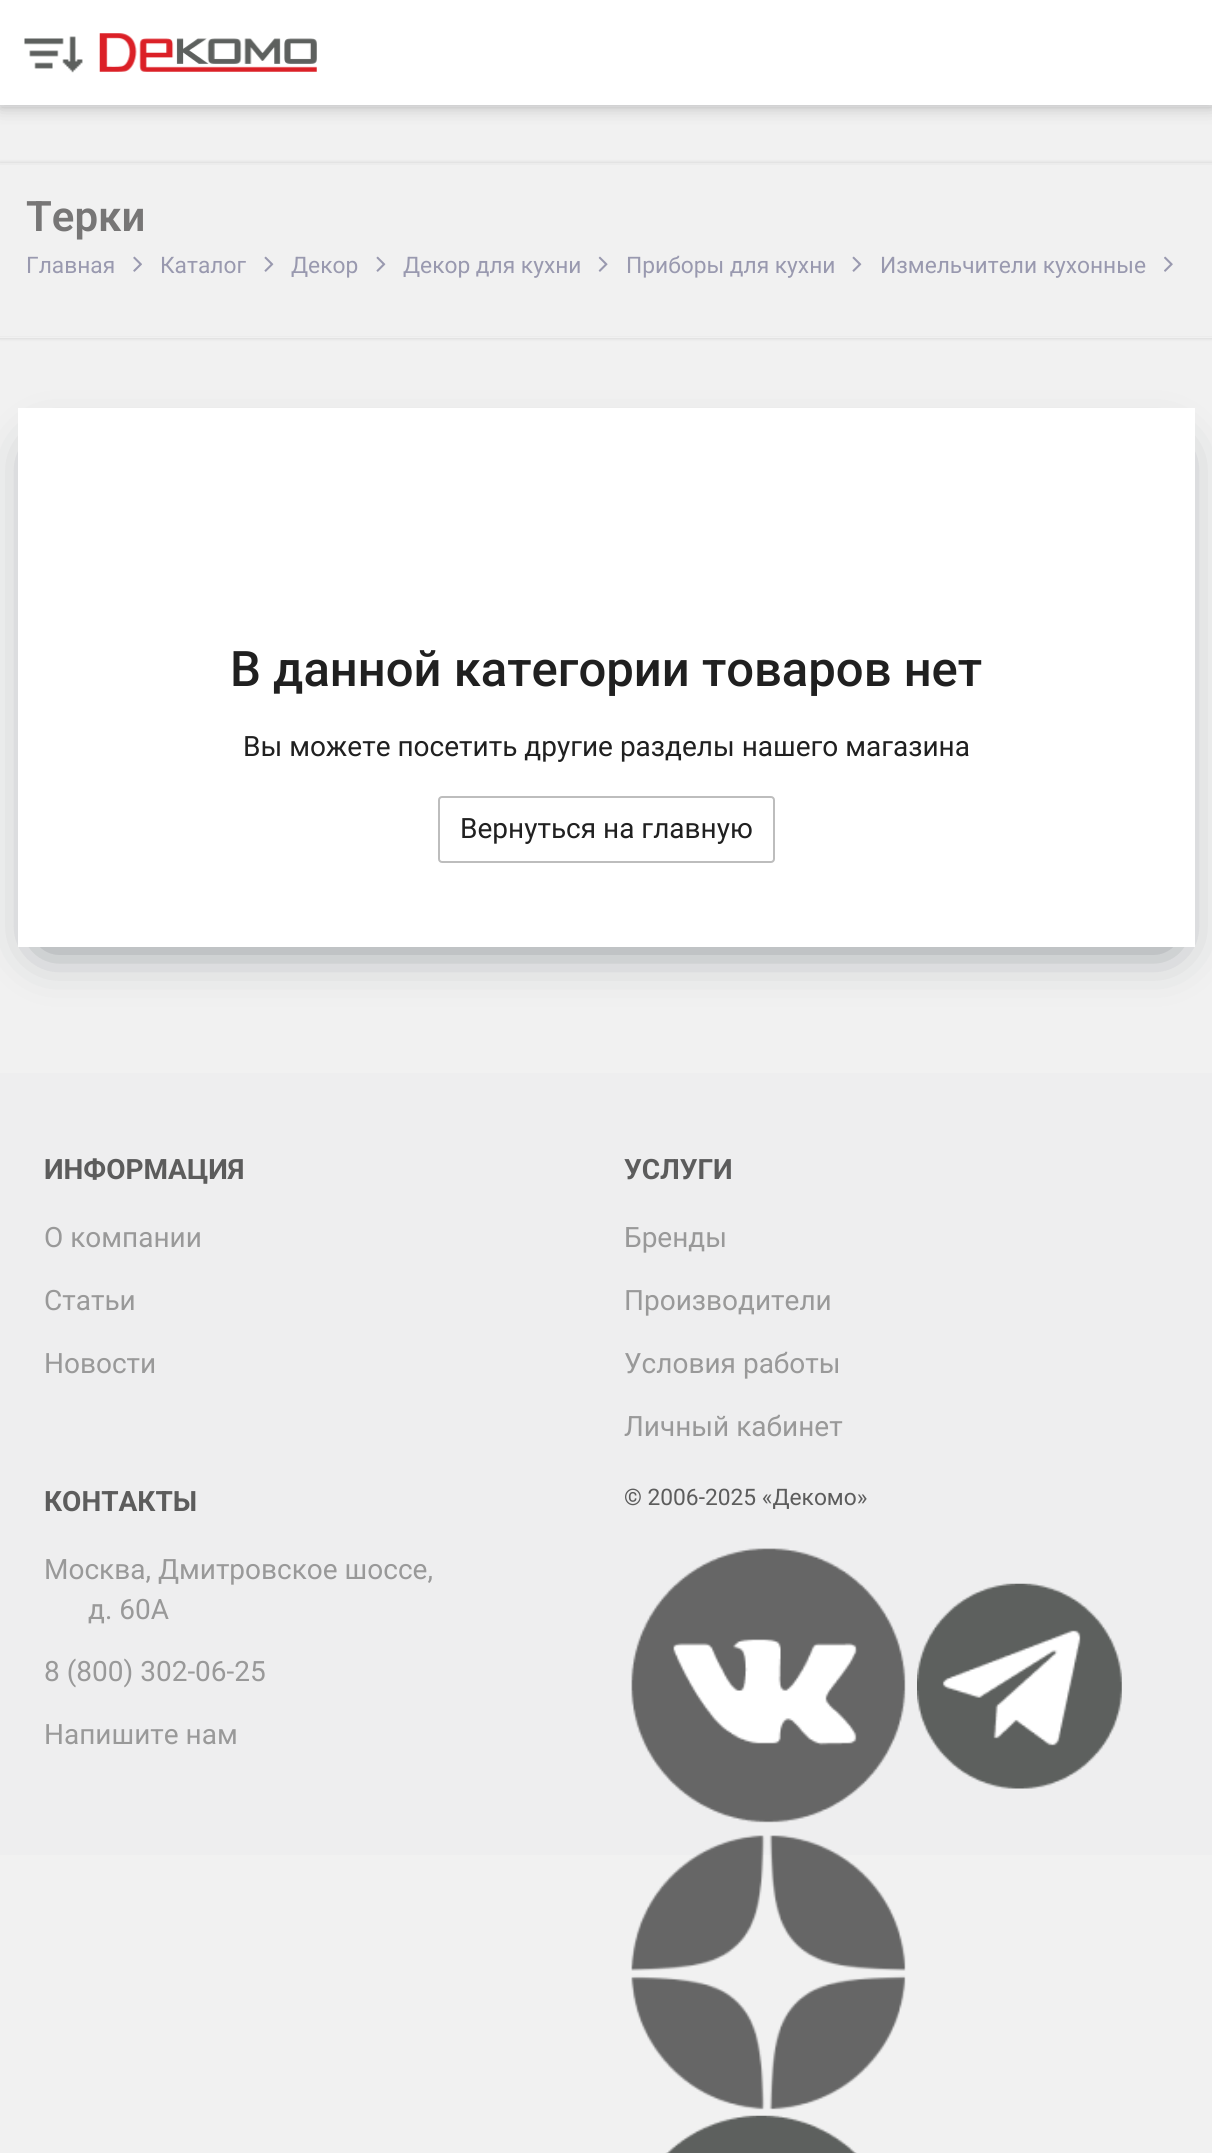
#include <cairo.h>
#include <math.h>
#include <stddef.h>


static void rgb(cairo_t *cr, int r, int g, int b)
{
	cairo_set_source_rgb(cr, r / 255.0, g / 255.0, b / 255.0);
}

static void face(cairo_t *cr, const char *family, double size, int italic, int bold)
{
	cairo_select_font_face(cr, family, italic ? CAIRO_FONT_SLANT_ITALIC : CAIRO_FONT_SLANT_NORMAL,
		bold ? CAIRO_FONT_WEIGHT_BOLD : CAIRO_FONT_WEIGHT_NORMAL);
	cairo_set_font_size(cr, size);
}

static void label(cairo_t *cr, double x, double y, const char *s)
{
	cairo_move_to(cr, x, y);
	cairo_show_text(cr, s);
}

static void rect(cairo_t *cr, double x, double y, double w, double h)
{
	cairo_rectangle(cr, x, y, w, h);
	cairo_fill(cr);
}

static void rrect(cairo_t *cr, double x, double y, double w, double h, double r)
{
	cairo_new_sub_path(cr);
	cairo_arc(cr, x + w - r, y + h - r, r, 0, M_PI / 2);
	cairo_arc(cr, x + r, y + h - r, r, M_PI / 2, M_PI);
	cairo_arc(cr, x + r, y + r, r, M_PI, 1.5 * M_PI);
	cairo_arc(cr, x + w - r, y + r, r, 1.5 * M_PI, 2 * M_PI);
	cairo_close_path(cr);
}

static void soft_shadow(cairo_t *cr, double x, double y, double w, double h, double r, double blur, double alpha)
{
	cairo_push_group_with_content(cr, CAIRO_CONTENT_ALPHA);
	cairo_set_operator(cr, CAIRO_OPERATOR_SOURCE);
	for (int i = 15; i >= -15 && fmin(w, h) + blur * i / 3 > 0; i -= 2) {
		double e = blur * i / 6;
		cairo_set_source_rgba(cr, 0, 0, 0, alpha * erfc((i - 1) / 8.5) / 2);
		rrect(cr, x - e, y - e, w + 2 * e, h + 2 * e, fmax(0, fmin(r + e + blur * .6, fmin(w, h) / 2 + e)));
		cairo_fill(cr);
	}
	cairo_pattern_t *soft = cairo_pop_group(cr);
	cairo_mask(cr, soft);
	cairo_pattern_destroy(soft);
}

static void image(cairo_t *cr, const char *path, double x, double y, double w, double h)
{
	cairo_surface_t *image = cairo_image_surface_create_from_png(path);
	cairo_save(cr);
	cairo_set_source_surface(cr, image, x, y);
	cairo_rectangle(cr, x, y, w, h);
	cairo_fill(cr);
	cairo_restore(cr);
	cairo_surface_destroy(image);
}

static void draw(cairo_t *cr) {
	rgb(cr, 241, 241, 241);
	cairo_paint(cr);
	rgb(cr, 0, 0, 0);
	soft_shadow(cr, 0, 0, 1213, 107, 0, 2.5, 0.12);
	rgb(cr, 255, 255, 255);
	rect(cr, 0, 0, 1212, 105);
	rgb(cr, 238, 239, 240);
	rect(cr, 0, 105, 1212, 2);
	cairo_save(cr);
	cairo_rectangle(cr, 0, 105, 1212, 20);
	cairo_clip(cr);
	rgb(cr, 189, 189, 189);
	soft_shadow(cr, 0, 2, 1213, 105, 0, 9, 1);
	cairo_restore(cr);
	image(cr, "image0.png", 24, 36, 59, 37);
	image(cr, "image1.png", 99, 33, 218, 39);
	cairo_save(cr);
	cairo_set_fill_rule(cr, CAIRO_FILL_RULE_EVEN_ODD);
	cairo_new_path(cr);
	cairo_move_to(cr, 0, 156);
	cairo_line_to(cr, 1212, 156);
	cairo_line_to(cr, 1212, 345);
	cairo_line_to(cr, 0, 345);
	cairo_close_path(cr);
	cairo_move_to(cr, 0, 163);
	cairo_line_to(cr, 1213, 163);
	cairo_line_to(cr, 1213, 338);
	cairo_line_to(cr, 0, 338);
	cairo_close_path(cr);
	cairo_clip(cr);
	rgb(cr, 0, 0, 0);
	soft_shadow(cr, 0, 163, 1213, 175, 0, 2, 0.15);
	cairo_restore(cr);
	rgb(cr, 236, 236, 236);
	rect(cr, 0, 163, 1212, 2);
	rect(cr, 0, 336, 1212, 1);
	face(cr, "Roboto SemiBold", 42, 0, 0);
	rgb(cr, 119, 118, 118);
	label(cr, 26, 231, "Терки");
	face(cr, "Roboto", 22.75, 0, 0);
	rgb(cr, 153, 153, 175);
	label(cr, 26, 273, "Главная");
	image(cr, "image2.png", 133, 256, 9, 16);
	label(cr, 160, 273, "Каталог");
	image(cr, "image3.png", 264, 256, 10, 16);
	label(cr, 291, 273, "Декор");
	image(cr, "image3.png", 376, 256, 10, 16);
	label(cr, 403, 273, "Декор для кухни");
	image(cr, "image4.png", 598, 256, 10, 16);
	label(cr, 626, 273, "Приборы для кухни");
	image(cr, "image3.png", 852, 256, 10, 16);
	label(cr, 880, 273, "Измельчители кухонные");
	image(cr, "image5.png", 1164, 256, 9, 16);
	rgb(cr, 61, 72, 81);
	soft_shadow(cr, 44, 455, 1125, 487, 0, 26, 0.75);
	rgb(cr, 255, 255, 255);
	rect(cr, 18, 408, 1177, 539);
	face(cr, "Roboto Medium", 49, 0, 0);
	rgb(cr, 32, 32, 32);
	label(cr, 230, 686, "В данной категории товаров нет");
	face(cr, "Roboto", 28, 0, 0);
	label(cr, 243, 756, "Вы можете посетить другие разделы нашего магазина");
	rrect(cr, 439, 797, 335, 65, 3);
	rgb(cr, 189, 189, 189);
	cairo_stroke(cr);
	rgb(cr, 32, 32, 32);
	label(cr, 460, 838, "Вернуться на главную");
	rgb(cr, 238, 238, 239);
	rect(cr, 0, 1073, 1212, 782);
	face(cr, "Roboto", 28, 0, 1);
	rgb(cr, 92, 92, 92);
	label(cr, 44, 1179, "ИНФОРМАЦИЯ");
	face(cr, "Roboto", 28, 0, 0);
	rgb(cr, 153, 153, 153);
	label(cr, 44, 1247, "О компании");
	label(cr, 44, 1310, "Статьи");
	label(cr, 44, 1373, "Новости");
	face(cr, "Roboto", 28, 0, 1);
	rgb(cr, 92, 92, 92);
	label(cr, 624, 1179, "УСЛУГИ");
	face(cr, "Roboto", 28, 0, 0);
	rgb(cr, 153, 153, 153);
	label(cr, 624, 1247, "Бренды");
	label(cr, 624, 1310, "Производители");
	label(cr, 624, 1373, "Условия работы");
	label(cr, 624, 1436, "Личный кабинет");
	face(cr, "Roboto", 28, 0, 1);
	rgb(cr, 92, 92, 92);
	label(cr, 44, 1511, "КОНТАКТЫ");
	face(cr, "Roboto", 28, 0, 0);
	rgb(cr, 153, 153, 153);
	label(cr, 44, 1579, "Москва, Дмитровское шоссе,");
	label(cr, 88, 1619, "д. 60А");
	label(cr, 44, 1681, "8 (800) 302-06-25");
	label(cr, 44, 1744, "Напишите нам");
	face(cr, "Roboto", 22.75, 0, 0);
	rgb(cr, 92, 92, 92);
	label(cr, 624, 1505, "© 2006-2025 «Декомо»");
	image(cr, "image6.png", 631, 1548, 275, 275);
	image(cr, "image7.png", 917, 1583, 205, 206);
	image(cr, "image8.png", 631, 1835, 275, 275);
	image(cr, "image9.png", 665, 2115, 192, 38);
}

int main(void) {
	cairo_surface_t *surface = cairo_image_surface_create(CAIRO_FORMAT_RGB24, 1212, 2153);
	cairo_t *cr = cairo_create(surface);
	cairo_font_options_t *options = cairo_font_options_create();
	cairo_font_options_set_hint_metrics(options, CAIRO_HINT_METRICS_OFF);
	cairo_font_options_set_hint_style(options, CAIRO_HINT_STYLE_NONE);
	cairo_set_font_options(cr, options);
	cairo_set_miter_limit(cr, 4);
	draw(cr);
	cairo_surface_write_to_png(surface, "render.png");
	cairo_font_options_destroy(options);
	cairo_destroy(cr);
	cairo_surface_destroy(surface);
	return 0;
}
